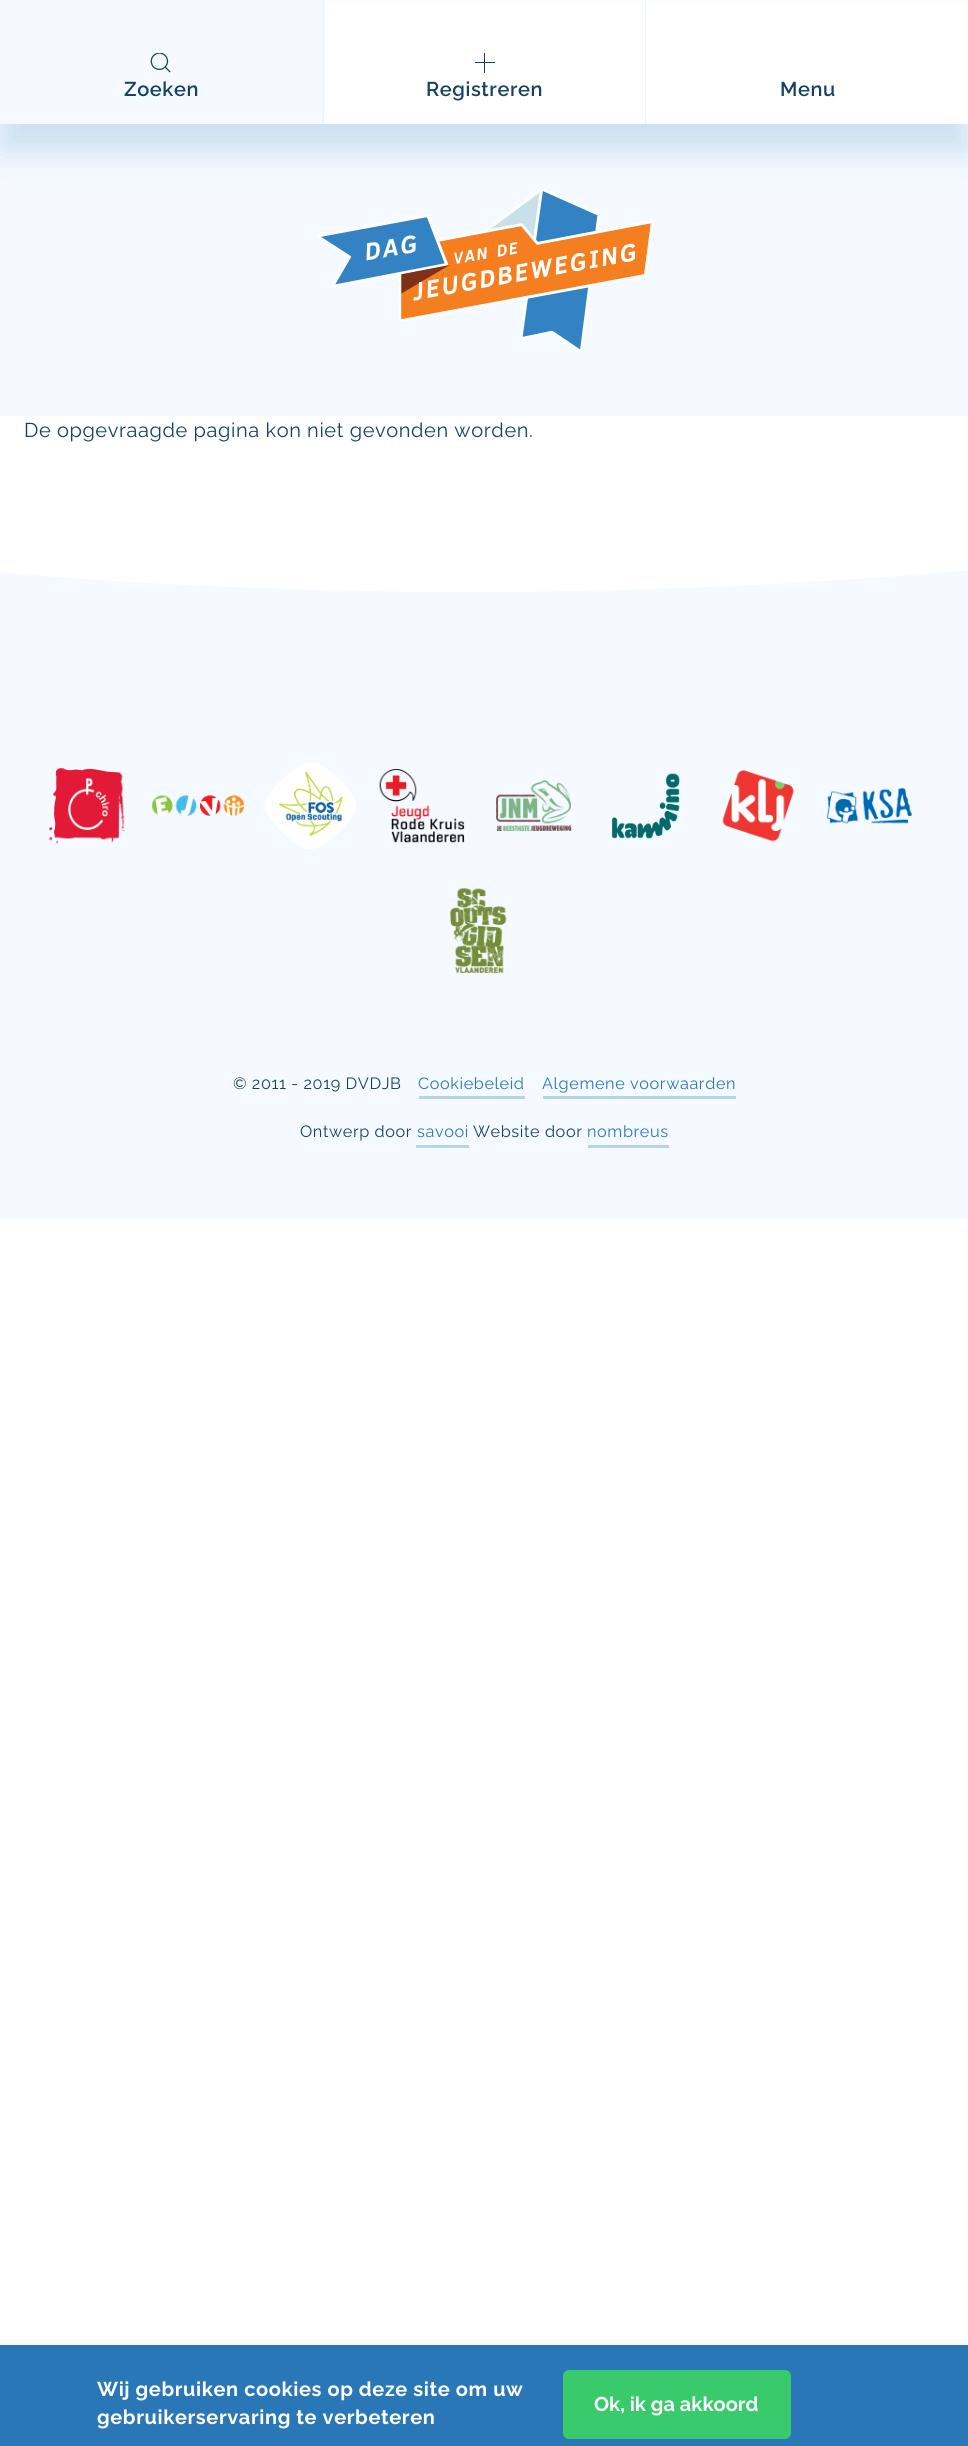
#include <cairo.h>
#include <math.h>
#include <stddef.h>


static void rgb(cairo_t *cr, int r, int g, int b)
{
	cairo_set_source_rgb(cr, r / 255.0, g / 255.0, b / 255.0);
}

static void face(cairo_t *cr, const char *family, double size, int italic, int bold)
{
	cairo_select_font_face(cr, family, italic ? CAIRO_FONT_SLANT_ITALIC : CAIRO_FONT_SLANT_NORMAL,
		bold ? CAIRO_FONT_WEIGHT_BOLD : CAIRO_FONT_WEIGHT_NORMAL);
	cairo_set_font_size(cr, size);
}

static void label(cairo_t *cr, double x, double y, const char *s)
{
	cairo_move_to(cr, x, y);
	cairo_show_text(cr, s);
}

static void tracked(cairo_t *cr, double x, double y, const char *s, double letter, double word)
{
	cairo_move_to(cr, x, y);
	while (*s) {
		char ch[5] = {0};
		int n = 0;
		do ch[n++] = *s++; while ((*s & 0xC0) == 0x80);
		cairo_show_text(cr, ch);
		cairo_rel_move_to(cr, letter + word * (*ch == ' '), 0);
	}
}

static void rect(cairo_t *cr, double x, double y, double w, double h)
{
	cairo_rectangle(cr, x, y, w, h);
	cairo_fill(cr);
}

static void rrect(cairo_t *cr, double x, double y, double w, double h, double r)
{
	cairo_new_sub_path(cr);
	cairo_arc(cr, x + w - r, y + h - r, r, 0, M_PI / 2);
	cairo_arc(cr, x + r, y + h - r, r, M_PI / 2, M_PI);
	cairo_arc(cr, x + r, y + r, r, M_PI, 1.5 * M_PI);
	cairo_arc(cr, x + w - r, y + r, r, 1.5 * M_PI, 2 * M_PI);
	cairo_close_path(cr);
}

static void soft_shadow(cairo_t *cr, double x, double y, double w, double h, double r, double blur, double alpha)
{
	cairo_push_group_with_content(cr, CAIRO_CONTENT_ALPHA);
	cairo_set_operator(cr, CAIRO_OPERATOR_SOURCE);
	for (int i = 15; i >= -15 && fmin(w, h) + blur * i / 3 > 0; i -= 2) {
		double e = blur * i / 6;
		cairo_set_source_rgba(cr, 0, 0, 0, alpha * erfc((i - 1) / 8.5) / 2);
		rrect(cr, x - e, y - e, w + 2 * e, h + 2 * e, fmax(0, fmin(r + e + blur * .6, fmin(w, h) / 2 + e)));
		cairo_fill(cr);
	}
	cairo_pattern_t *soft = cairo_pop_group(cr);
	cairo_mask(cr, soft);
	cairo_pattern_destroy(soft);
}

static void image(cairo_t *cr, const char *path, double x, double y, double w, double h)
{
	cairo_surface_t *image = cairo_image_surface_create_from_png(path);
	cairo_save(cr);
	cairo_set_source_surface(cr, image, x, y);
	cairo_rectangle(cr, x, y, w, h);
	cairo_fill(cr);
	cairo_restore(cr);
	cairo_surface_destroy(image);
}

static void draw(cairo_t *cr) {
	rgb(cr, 255, 255, 255);
	cairo_paint(cr);
	rgb(cr, 244, 250, 255);
	rect(cr, 0, 124, 968, 292);
	image(cr, "image1.png", 316, 188, 338, 165);
	rgb(cr, 42, 119, 184);
	soft_shadow(cr, 0, 28, 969, 123, 0, 15, 0.2);
	rgb(cr, 233, 244, 251);
	rect(cr, 323, 0, 1, 124);
	rgb(cr, 244, 250, 255);
	rect(cr, 0, 0, 323, 124);
	image(cr, "image0.png", 150, 53, 21, 20);
	face(cr, "Raleway SemiBold", 20, 0, 0);
	rgb(cr, 22, 65, 101);
	tracked(cr, 124, 96, "Zoeken", 0.6, 0);
	rgb(cr, 233, 244, 251);
	rect(cr, 645, 0, 1, 124);
	rgb(cr, 255, 255, 255);
	rect(cr, 324, 5, 321, 119);
	rgb(cr, 22, 65, 101);
	rect(cr, 484, 53, 1, 20);
	rect(cr, 475, 62, 20, 1);
	tracked(cr, 426, 96, "Registreren", 0.6, 0);
	rgb(cr, 255, 255, 255);
	rect(cr, 646, 5, 322, 119);
	rgb(cr, 22, 65, 101);
	tracked(cr, 780, 96, "Menu", 0.6, 0);
	face(cr, "Raleway", 20, 0, 0);
	tracked(cr, 24, 437, "De opgevraagde pagina kon niet gevonden worden.", 0.6, 0);
	cairo_save(cr);
	cairo_rectangle(cr, 0, 509, 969, 710);
	cairo_clip(cr);
	rgb(cr, 244, 250, 255);
	cairo_set_fill_rule(cr, CAIRO_FILL_RULE_EVEN_ODD);
	cairo_new_path(cr);
	cairo_move_to(cr, -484, 509);
	cairo_curve_to(cr, -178, 564, 140, 592, 468, 592);
	cairo_curve_to(cr, 796, 592, 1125, 564, 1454, 509);
	cairo_line_to(cr, 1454, 1478);
	cairo_line_to(cr, -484, 1478);
	cairo_close_path(cr);
	cairo_fill(cr);
	cairo_restore(cr);
	image(cr, "image2.png", 49, 768, 76, 76);
	image(cr, "image3.png", 152, 795, 93, 21);
	image(cr, "image4.png", 265, 762, 91, 87);
	image(cr, "image5.png", 379, 768, 86, 75);
	image(cr, "image6.png", 496, 780, 76, 51);
	image(cr, "image7.png", 612, 773, 68, 66);
	image(cr, "image8.png", 722, 770, 72, 72);
	image(cr, "image9.png", 827, 787, 85, 37);
	image(cr, "image10.png", 450, 888, 57, 86);
	face(cr, "Raleway", 16.25, 0, 0);
	tracked(cr, 233, 1089, "© 2011 - 2019 DVDJB", 0.6, 0);
	rgb(cr, 42, 119, 184);
	tracked(cr, 418, 1089, "Cookiebeleid", 0.6, 0);
	rgb(cr, 183, 211, 234);
	rect(cr, 419, 1096, 106, 3);
	rgb(cr, 42, 119, 184);
	tracked(cr, 542, 1089, "Algemene voorwaarden", 0.6, 0);
	rgb(cr, 183, 211, 234);
	rect(cr, 543, 1096, 193, 3);
	rgb(cr, 22, 65, 101);
	tracked(cr, 300, 1137, "Ontwerp door", 0.6, 0);
	rgb(cr, 42, 119, 184);
	tracked(cr, 417, 1137, "savooi", 0.6, 0);
	rgb(cr, 183, 211, 234);
	rect(cr, 416, 1145, 53, 3);
	rgb(cr, 22, 65, 101);
	tracked(cr, 473, 1137, "Website door", 0.6, 0);
	rgb(cr, 42, 119, 184);
	tracked(cr, 587, 1137, "nombreus", 0.6, 0);
	rgb(cr, 183, 211, 234);
	rect(cr, 588, 1145, 81, 3);
	rgb(cr, 42, 119, 184);
	rect(cr, 0, 2345, 968, 101);
	face(cr, "Raleway", 20, 0, 1);
	rgb(cr, 255, 255, 255);
	tracked(cr, 97, 2396, "Wij gebruiken cookies op deze site om uw", 0.6, 0);
	tracked(cr, 97, 2424, "gebruikerservaring te verbeteren", 0.6, 0);
	rgb(cr, 57, 202, 107);
	rrect(cr, 564.5, 2371.5, 225, 66, 4.5);
	cairo_fill_preserve(cr);
	cairo_set_line_width(cr, 3);
	cairo_stroke(cr);
	rgb(cr, 255, 255, 255);
	label(cr, 594, 2411, "Ok, ik ga akkoord");
}

int main(void) {
	cairo_surface_t *surface = cairo_image_surface_create(CAIRO_FORMAT_RGB24, 968, 2446);
	cairo_t *cr = cairo_create(surface);
	cairo_font_options_t *options = cairo_font_options_create();
	cairo_font_options_set_hint_metrics(options, CAIRO_HINT_METRICS_OFF);
	cairo_font_options_set_hint_style(options, CAIRO_HINT_STYLE_NONE);
	cairo_set_font_options(cr, options);
	cairo_set_miter_limit(cr, 4);
	draw(cr);
	cairo_surface_write_to_png(surface, "render.png");
	cairo_font_options_destroy(options);
	cairo_destroy(cr);
	cairo_surface_destroy(surface);
	return 0;
}
